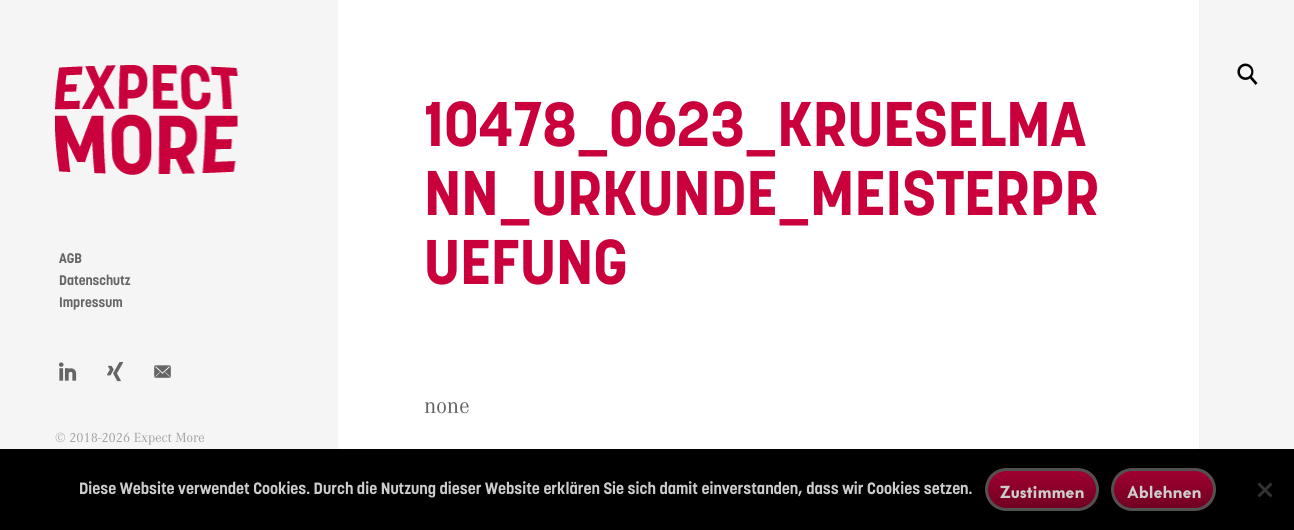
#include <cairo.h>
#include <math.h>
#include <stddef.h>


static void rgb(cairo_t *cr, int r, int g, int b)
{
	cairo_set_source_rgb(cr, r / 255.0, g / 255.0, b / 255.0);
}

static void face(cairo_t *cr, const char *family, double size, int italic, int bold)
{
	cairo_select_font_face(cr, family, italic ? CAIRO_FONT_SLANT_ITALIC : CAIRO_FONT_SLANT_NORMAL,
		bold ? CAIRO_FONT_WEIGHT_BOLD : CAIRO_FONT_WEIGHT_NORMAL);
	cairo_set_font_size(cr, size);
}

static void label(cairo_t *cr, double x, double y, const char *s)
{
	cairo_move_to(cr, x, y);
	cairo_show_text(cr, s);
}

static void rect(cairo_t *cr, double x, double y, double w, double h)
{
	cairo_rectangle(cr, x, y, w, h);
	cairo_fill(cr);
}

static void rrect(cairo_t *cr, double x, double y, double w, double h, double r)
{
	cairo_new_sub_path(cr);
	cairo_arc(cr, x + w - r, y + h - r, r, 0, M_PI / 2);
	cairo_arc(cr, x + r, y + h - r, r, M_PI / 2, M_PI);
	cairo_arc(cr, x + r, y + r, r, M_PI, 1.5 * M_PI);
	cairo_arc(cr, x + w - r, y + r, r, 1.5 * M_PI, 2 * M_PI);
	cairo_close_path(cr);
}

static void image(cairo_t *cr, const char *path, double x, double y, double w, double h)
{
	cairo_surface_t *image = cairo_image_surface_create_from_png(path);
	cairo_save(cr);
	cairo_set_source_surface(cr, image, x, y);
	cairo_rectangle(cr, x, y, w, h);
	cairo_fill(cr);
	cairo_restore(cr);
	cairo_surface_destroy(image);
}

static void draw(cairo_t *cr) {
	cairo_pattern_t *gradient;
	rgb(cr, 245, 245, 245);
	cairo_paint(cr);
	image(cr, "image0.png", 55, 65, 183, 110);
	rgb(cr, 255, 255, 255);
	rect(cr, 338, 0, 861, 449);
	rgb(cr, 241, 241, 241);
	rect(cr, 1199, 0, 1, 449);
	face(cr, "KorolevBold", 62.5, 0, 1);
	rgb(cr, 202, 0, 60);
	label(cr, 424, 146, "10478_0623_KRUESELMA");
	label(cr, 424, 215, "NN_URKUNDE_MEISTERPR");
	label(cr, 424, 284, "UEFUNG");
	face(cr, "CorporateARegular", 22.5, 0, 0);
	rgb(cr, 101, 101, 101);
	label(cr, 424, 413, "none");
	image(cr, "image1.png", 1237, 63, 21, 22);
	face(cr, "KorolevBold", 13.75, 0, 1);
	label(cr, 59, 263, "AGB");
	label(cr, 59, 285, "Datenschutz");
	label(cr, 59, 307, "Impressum");
	image(cr, "image2.png", 58, 362, 19, 19);
	image(cr, "image3.png", 107, 362, 17, 20);
	image(cr, "image4.png", 154, 365, 17, 13);
	face(cr, "CorporateARegular", 13.75, 0, 0);
	rgb(cr, 161, 161, 161);
	label(cr, 55, 442, "© 2018-2026 Expect More");
	rgb(cr, 0, 0, 0);
	rect(cr, 0, 449, 1294, 81);
	face(cr, "KorolevBold", 16.25, 0, 1);
	rgb(cr, 204, 204, 204);
	label(cr, 79, 494, "Diese Website verwendet Cookies. Durch die Nutzung dieser Website erklären Sie sich damit einverstanden, dass wir Cookies setzen.");
	cairo_save(cr);
	rrect(cr, 985, 468, 114, 43, 21.5);
	cairo_clip(cr);
	gradient = cairo_pattern_create_linear(1042, 470, 1042, 509);
	cairo_pattern_add_color_stop_rgba(gradient, 0, 0.635, 0, 0.188, 1);
	cairo_pattern_add_color_stop_rgba(gradient, 1, 0.431, 0, 0.129, 1);
	cairo_set_source(cr, gradient);
	cairo_pattern_destroy(gradient);
	rect(cr, 988, 470, 108, 39);
	cairo_restore(cr);
	rrect(cr, 986.5, 469.5, 111, 40, 20);
	rgb(cr, 81, 81, 81);
	cairo_set_line_width(cr, 3);
	cairo_stroke(cr);
	face(cr, "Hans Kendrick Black", 16.25, 0, 0);
	rgb(cr, 204, 204, 204);
	label(cr, 1000, 498, "Zustimmen");
	cairo_save(cr);
	rrect(cr, 1111, 468, 105, 43, 21.5);
	cairo_clip(cr);
	gradient = cairo_pattern_create_linear(1164, 470, 1164, 509);
	cairo_pattern_add_color_stop_rgba(gradient, 0, 0.635, 0, 0.188, 1);
	cairo_pattern_add_color_stop_rgba(gradient, 1, 0.431, 0, 0.129, 1);
	cairo_set_source(cr, gradient);
	cairo_pattern_destroy(gradient);
	rect(cr, 1114, 470, 100, 39);
	cairo_restore(cr);
	rrect(cr, 1112.5, 469.5, 102, 40, 20);
	rgb(cr, 81, 81, 81);
	cairo_stroke(cr);
	rgb(cr, 204, 204, 204);
	label(cr, 1127, 498, "Ablehnen");
	rgb(cr, 51, 51, 51);
	cairo_new_path(cr);
	cairo_move_to(cr, 1270.5, 482.5);
	cairo_line_to(cr, 1272.5, 484.5);
	cairo_line_to(cr, 1259.5, 497.5);
	cairo_line_to(cr, 1257.5, 495.5);
	cairo_close_path(cr);
	cairo_fill(cr);
	cairo_new_path(cr);
	cairo_move_to(cr, 1257.5, 484.5);
	cairo_line_to(cr, 1259.5, 482.5);
	cairo_line_to(cr, 1272.5, 495.5);
	cairo_line_to(cr, 1270.5, 497.5);
	cairo_close_path(cr);
	cairo_fill(cr);
}

int main(void) {
	cairo_surface_t *surface = cairo_image_surface_create(CAIRO_FORMAT_RGB24, 1294, 530);
	cairo_t *cr = cairo_create(surface);
	cairo_font_options_t *options = cairo_font_options_create();
	cairo_font_options_set_hint_metrics(options, CAIRO_HINT_METRICS_OFF);
	cairo_font_options_set_hint_style(options, CAIRO_HINT_STYLE_NONE);
	cairo_set_font_options(cr, options);
	cairo_set_miter_limit(cr, 4);
	draw(cr);
	cairo_surface_write_to_png(surface, "render.png");
	cairo_font_options_destroy(options);
	cairo_destroy(cr);
	cairo_surface_destroy(surface);
	return 0;
}
